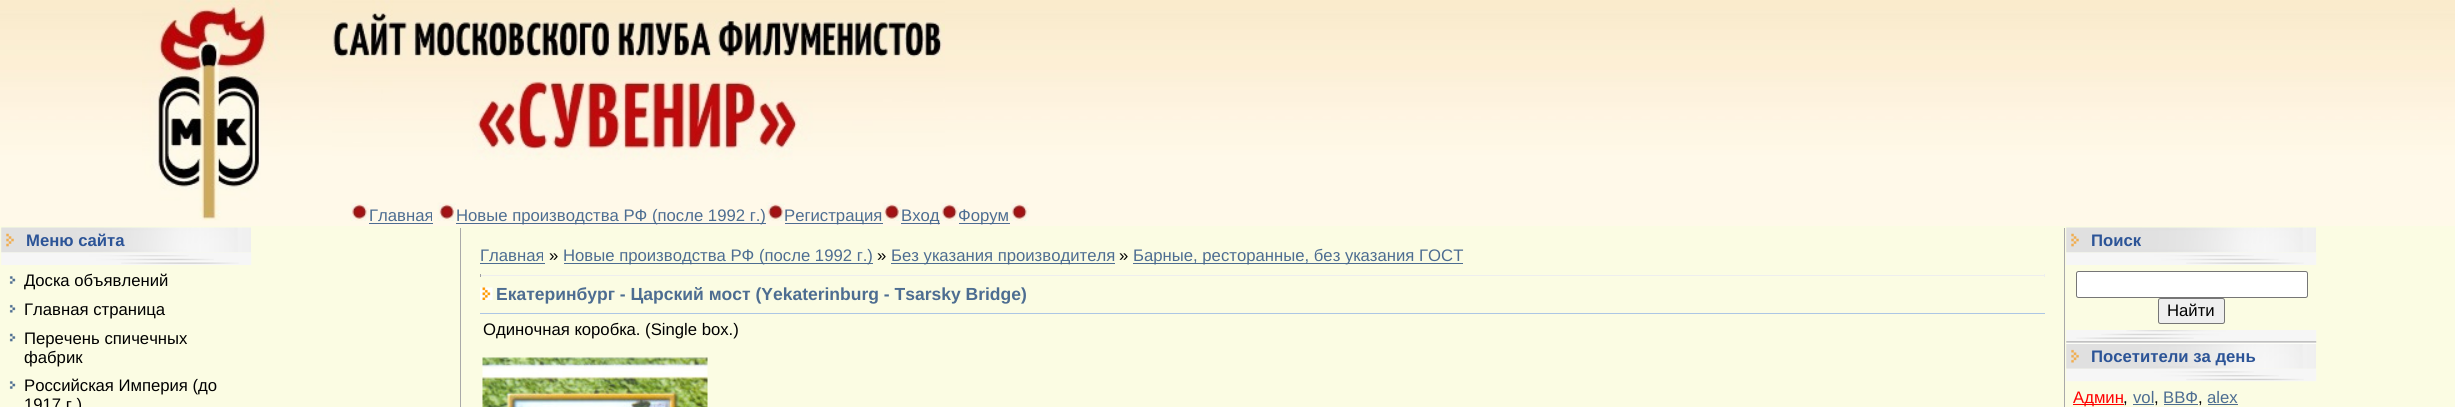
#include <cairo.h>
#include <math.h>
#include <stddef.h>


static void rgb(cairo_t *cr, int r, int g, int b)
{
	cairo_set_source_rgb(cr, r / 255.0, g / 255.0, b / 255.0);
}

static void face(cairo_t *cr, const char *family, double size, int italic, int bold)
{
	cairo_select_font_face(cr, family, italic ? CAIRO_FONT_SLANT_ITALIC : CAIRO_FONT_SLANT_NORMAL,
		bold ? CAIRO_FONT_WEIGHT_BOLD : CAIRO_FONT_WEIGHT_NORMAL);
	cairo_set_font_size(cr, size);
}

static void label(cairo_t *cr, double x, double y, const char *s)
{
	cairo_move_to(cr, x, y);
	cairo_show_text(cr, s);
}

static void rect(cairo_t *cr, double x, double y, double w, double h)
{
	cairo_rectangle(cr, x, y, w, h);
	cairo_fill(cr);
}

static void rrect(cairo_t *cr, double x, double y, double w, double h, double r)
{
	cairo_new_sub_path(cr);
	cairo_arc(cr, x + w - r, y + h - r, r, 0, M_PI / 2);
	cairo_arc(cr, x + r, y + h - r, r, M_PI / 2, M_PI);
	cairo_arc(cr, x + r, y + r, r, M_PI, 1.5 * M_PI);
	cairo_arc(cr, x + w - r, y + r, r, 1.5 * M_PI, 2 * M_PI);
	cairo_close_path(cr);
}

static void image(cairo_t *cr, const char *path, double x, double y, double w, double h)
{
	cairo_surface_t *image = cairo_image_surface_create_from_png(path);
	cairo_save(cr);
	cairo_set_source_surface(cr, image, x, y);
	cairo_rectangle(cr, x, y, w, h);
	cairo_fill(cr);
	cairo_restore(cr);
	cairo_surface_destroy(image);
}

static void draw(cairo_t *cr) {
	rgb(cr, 251, 252, 227);
	cairo_paint(cr);
	image(cr, "image0.png", 0, 0, 2455, 226);
	image(cr, "image1.png", 142, 0, 138, 221);
	image(cr, "image2.png", 332, 0, 613, 160);
	image(cr, "image3.png", 350, 202, 19, 19);
	face(cr, "Liberation Sans", 16.7, 0, 0);
	rgb(cr, 77, 109, 145);
	label(cr, 369, 221, "Главная");
	rect(cr, 369, 223, 64, 1);
	image(cr, "image4.png", 437, 202, 19, 19);
	rect(cr, 456, 223, 310, 1);
	label(cr, 456, 221, "Новые производства РФ (после 1992 г.)");
	image(cr, "image5.png", 766, 202, 19, 19);
	rect(cr, 785, 223, 98, 1);
	label(cr, 784, 221, "Регистрация");
	image(cr, "image4.png", 882, 202, 19, 19);
	rect(cr, 901, 223, 39, 1);
	label(cr, 901, 221, "Вход");
	image(cr, "image6.png", 940, 202, 19, 19);
	rect(cr, 959, 223, 51, 1);
	label(cr, 958, 221, "Форум");
	image(cr, "image7.png", 1010, 202, 19, 19);
	image(cr, "image8.png", 1, 227, 250, 26);
	face(cr, "Liberation Sans", 16.7, 0, 1);
	rgb(cr, 44, 84, 151);
	label(cr, 26, 246, "Меню сайта");
	image(cr, "image9.png", 1, 252, 251, 13);
	image(cr, "image10.png", 9, 276, 7, 8);
	face(cr, "Liberation Sans", 16.7, 0, 0);
	rgb(cr, 0, 0, 0);
	label(cr, 24, 286, "Доска объявлений");
	image(cr, "image11.png", 9, 304, 7, 9);
	label(cr, 24, 315, "Главная страница");
	image(cr, "image12.png", 9, 333, 7, 9);
	label(cr, 24, 344, "Перечень спичечных");
	label(cr, 24, 363, "фабрик");
	image(cr, "image10.png", 9, 381, 7, 8);
	label(cr, 24, 391, "Российская Империя (до");
	label(cr, 24, 410, "1917 г.)");
	rgb(cr, 169, 169, 169);
	rect(cr, 2064, 228, 1, 179);
	rect(cr, 460, 228, 1, 179);
	rgb(cr, 77, 109, 145);
	label(cr, 480, 261, "Главная");
	rect(cr, 480, 263, 65, 1);
	rgb(cr, 0, 0, 0);
	label(cr, 549, 261, "»");
	rgb(cr, 77, 109, 145);
	rect(cr, 564, 263, 309, 1);
	label(cr, 563, 261, "Новые производства РФ (после 1992 г.)");
	rgb(cr, 0, 0, 0);
	label(cr, 877, 261, "»");
	rgb(cr, 77, 109, 145);
	rect(cr, 891, 263, 224, 1);
	label(cr, 891, 261, "Без указания производителя");
	rgb(cr, 0, 0, 0);
	label(cr, 1119, 261, "»");
	rgb(cr, 77, 109, 145);
	rect(cr, 1133, 263, 330, 1);
	label(cr, 1133, 261, "Барные, ресторанные, без указания ГОСТ");
	rgb(cr, 238, 238, 238);
	rect(cr, 2044, 274, 1, 3);
	rect(cr, 480, 275, 1565, 1);
	rgb(cr, 159, 159, 159);
	rect(cr, 480, 274, 1, 3);
	image(cr, "image13.png", 480, 287, 13, 13);
	face(cr, "Liberation Sans", 17.5, 0, 1);
	rgb(cr, 77, 109, 145);
	label(cr, 496, 300, "Екатеринбург - Царский мост (Yekaterinburg - Tsarsky Bridge)");
	rgb(cr, 172, 198, 229);
	rect(cr, 480, 313, 1565, 1);
	face(cr, "Liberation Sans", 16.7, 0, 0);
	rgb(cr, 0, 0, 0);
	label(cr, 483, 335, "Одиночная коробка. (Single box.)");
	image(cr, "image14.png", 482, 357, 226, 50);
	image(cr, "image15.png", 2066, 227, 250, 26);
	face(cr, "Liberation Sans", 16.7, 0, 1);
	rgb(cr, 44, 84, 151);
	label(cr, 2091, 246, "Поиск");
	image(cr, "image9.png", 2066, 252, 251, 13);
	rgb(cr, 255, 255, 255);
	rrect(cr, 2076.5, 271.5, 231, 26, 2);
	cairo_fill_preserve(cr);
	rgb(cr, 118, 118, 118);
	cairo_set_line_width(cr, 1);
	cairo_stroke(cr);
	rgb(cr, 239, 239, 239);
	rrect(cr, 2158.5, 298.5, 66, 25, 2);
	cairo_fill_preserve(cr);
	rgb(cr, 118, 118, 118);
	cairo_stroke(cr);
	face(cr, "Liberation Sans", 16.7, 0, 0);
	rgb(cr, 0, 0, 0);
	label(cr, 2167, 316, "Найти");
	image(cr, "image17.png", 2066, 343, 250, 26);
	image(cr, "image16.png", 2066, 330, 251, 14);
	face(cr, "Liberation Sans", 16.7, 0, 1);
	rgb(cr, 44, 84, 151);
	label(cr, 2091, 362, "Посетители за день");
	image(cr, "image18.png", 2066, 368, 251, 14);
	rgb(cr, 255, 0, 0);
	rect(cr, 2073, 404, 51, 1);
	face(cr, "Liberation Sans", 16.7, 0, 0);
	label(cr, 2073, 403, "Админ");
	rgb(cr, 0, 0, 0);
	label(cr, 2123, 403, ",");
	rgb(cr, 77, 109, 145);
	label(cr, 2133, 403, "vol");
	rect(cr, 2133, 404, 21, 1);
	rgb(cr, 0, 0, 0);
	label(cr, 2154, 403, ",");
	rgb(cr, 77, 109, 145);
	label(cr, 2163, 403, "ВВФ");
	rect(cr, 2164, 404, 34, 1);
	rgb(cr, 0, 0, 0);
	label(cr, 2198, 403, ",");
	rgb(cr, 77, 109, 145);
	label(cr, 2207, 403, "alex");
	rect(cr, 2208, 404, 30, 1);
}

int main(void) {
	cairo_surface_t *surface = cairo_image_surface_create(CAIRO_FORMAT_RGB24, 2455, 407);
	cairo_t *cr = cairo_create(surface);
	cairo_font_options_t *options = cairo_font_options_create();
	cairo_font_options_set_hint_metrics(options, CAIRO_HINT_METRICS_OFF);
	cairo_font_options_set_hint_style(options, CAIRO_HINT_STYLE_NONE);
	cairo_set_font_options(cr, options);
	cairo_set_miter_limit(cr, 4);
	draw(cr);
	cairo_surface_write_to_png(surface, "render.png");
	cairo_font_options_destroy(options);
	cairo_destroy(cr);
	cairo_surface_destroy(surface);
	return 0;
}
